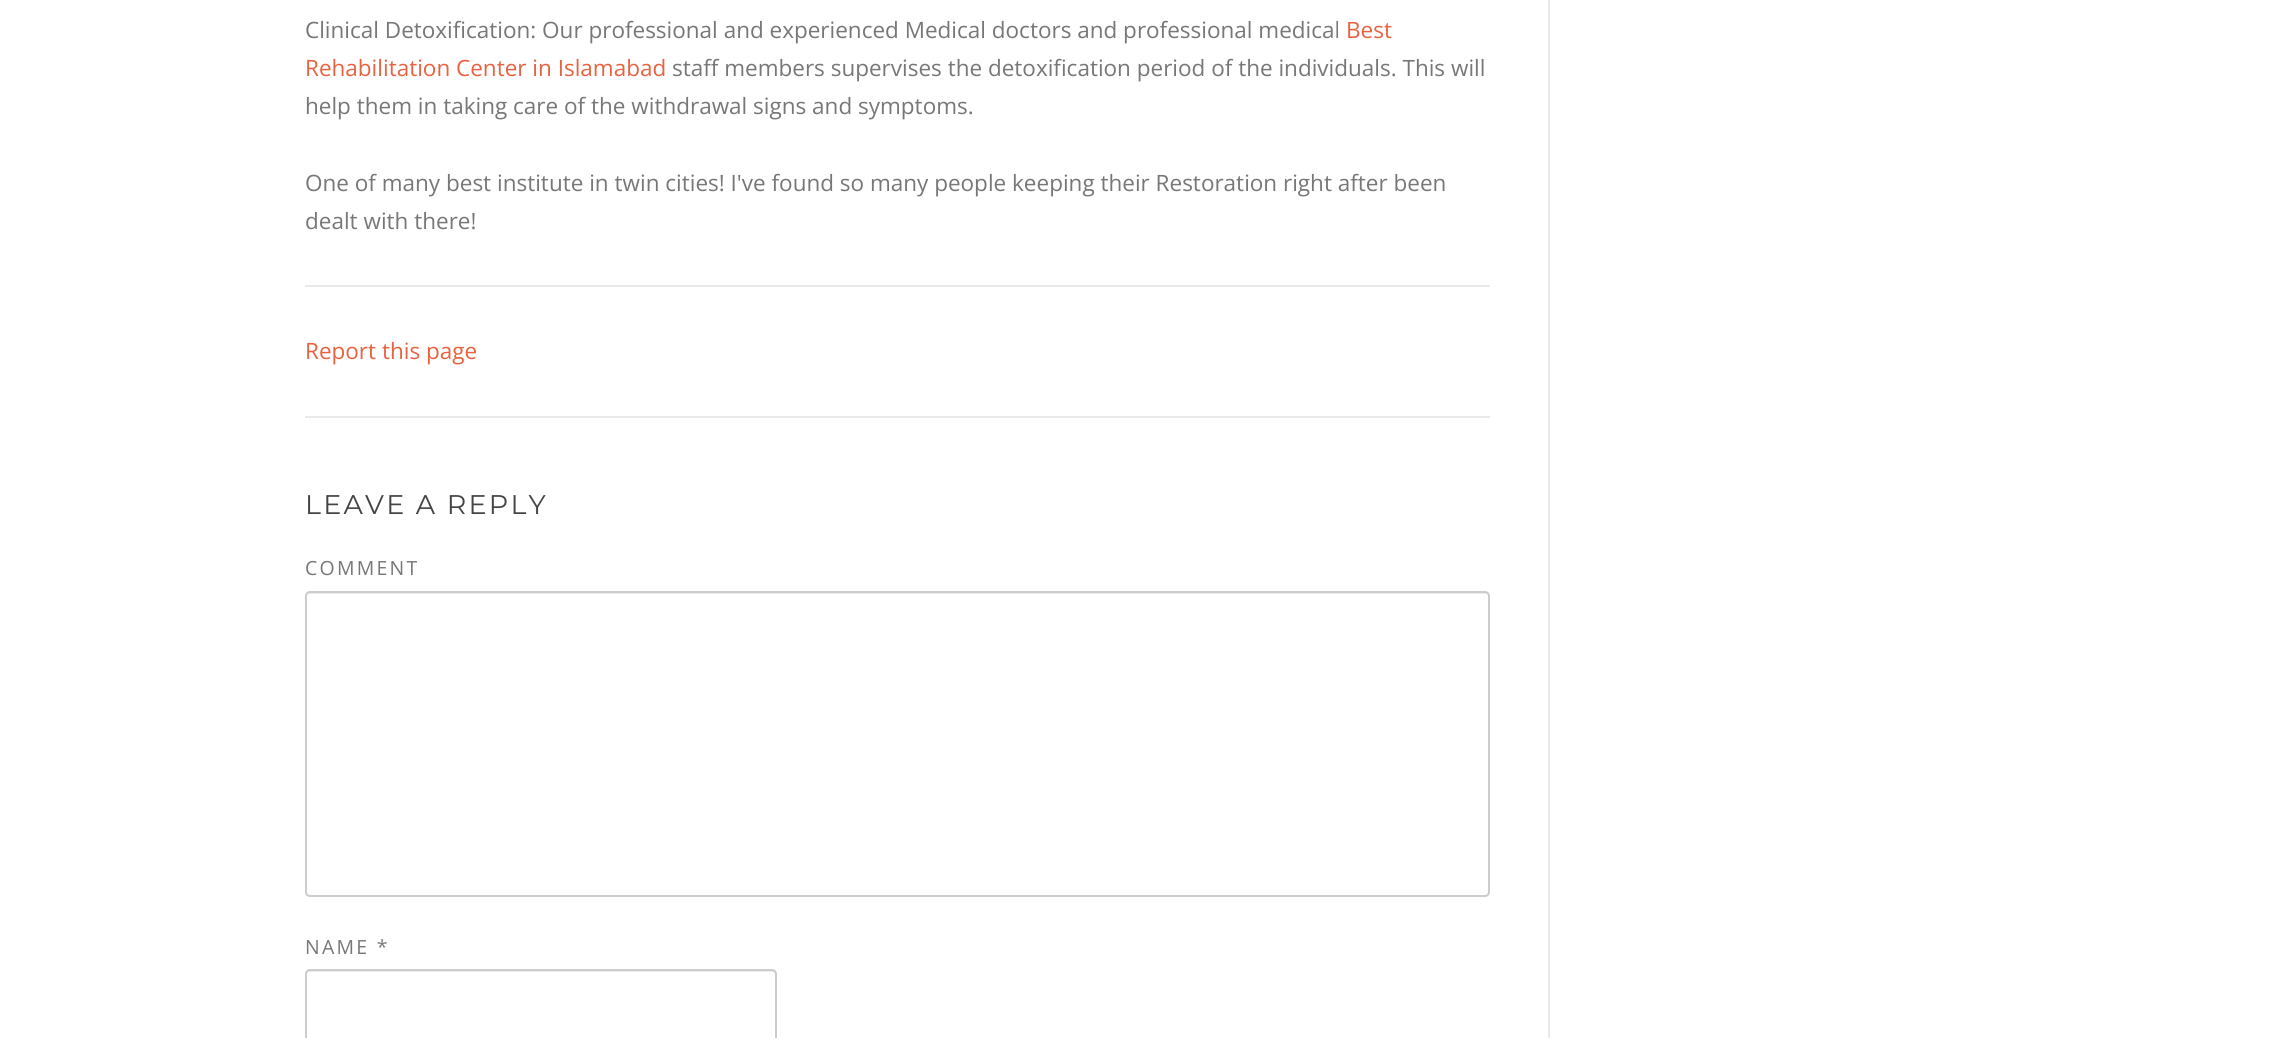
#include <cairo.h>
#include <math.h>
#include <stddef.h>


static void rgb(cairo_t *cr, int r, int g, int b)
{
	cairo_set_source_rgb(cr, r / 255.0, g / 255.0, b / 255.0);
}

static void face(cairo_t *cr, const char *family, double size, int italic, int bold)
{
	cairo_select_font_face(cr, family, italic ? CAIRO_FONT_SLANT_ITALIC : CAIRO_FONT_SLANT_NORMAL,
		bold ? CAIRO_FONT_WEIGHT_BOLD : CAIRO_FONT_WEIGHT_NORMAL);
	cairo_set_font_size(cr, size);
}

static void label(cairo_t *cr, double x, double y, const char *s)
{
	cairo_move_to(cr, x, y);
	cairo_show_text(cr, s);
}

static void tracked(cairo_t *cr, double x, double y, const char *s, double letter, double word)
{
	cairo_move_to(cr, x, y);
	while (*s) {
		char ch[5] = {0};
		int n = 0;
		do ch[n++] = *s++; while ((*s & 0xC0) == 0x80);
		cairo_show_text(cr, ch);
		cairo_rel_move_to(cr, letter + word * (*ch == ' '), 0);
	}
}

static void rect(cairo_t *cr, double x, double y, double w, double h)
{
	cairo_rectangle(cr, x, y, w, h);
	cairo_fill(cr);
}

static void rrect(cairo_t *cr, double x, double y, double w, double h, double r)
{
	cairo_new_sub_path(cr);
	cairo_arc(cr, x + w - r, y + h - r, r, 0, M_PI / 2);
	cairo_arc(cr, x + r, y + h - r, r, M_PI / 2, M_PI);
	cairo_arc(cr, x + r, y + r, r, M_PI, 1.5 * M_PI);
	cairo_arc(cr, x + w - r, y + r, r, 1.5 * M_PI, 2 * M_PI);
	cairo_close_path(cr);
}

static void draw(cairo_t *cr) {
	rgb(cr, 255, 255, 255);
	cairo_paint(cr);
	rgb(cr, 233, 233, 233);
	rect(cr, 1548, 0, 2, 1038);
	face(cr, "Open Sans", 22.5, 0, 0);
	rgb(cr, 119, 119, 119);
	label(cr, 305, 38, "Clinical Detoxification: Our professional and experienced Medical doctors and professional medical");
	rgb(cr, 232, 98, 64);
	label(cr, 1346, 38, "Best");
	label(cr, 305, 76, "Rehabilitation Center in Islamabad");
	rgb(cr, 119, 119, 119);
	label(cr, 672, 76, "staff members supervises the detoxification period of the individuals. This will");
	label(cr, 305, 114, "help them in taking care of the withdrawal signs and symptoms.");
	label(cr, 305, 191, "One of many best institute in twin cities! I've found so many people keeping their Restoration right after been");
	label(cr, 305, 229, "dealt with there!");
	rgb(cr, 233, 233, 233);
	rect(cr, 305, 285, 1185, 2);
	rgb(cr, 232, 98, 64);
	label(cr, 305, 359, "Report this page");
	rgb(cr, 233, 233, 233);
	rect(cr, 305, 416, 1185, 2);
	face(cr, "Montserrat", 27, 0, 0);
	rgb(cr, 68, 68, 68);
	tracked(cr, 305, 514, "LEAVE A REPLY", 2.25, 0);
	face(cr, "Open Sans", 19.5, 0, 0);
	rgb(cr, 119, 119, 119);
	tracked(cr, 305, 575, "COMMENT", 2.25, 0);
	rgb(cr, 235, 235, 235);
	cairo_new_path(cr);
	cairo_move_to(cr, 309, 594);
	cairo_line_to(cr, 1485, 594);
	cairo_curve_to(cr, 1487, 594, 1488, 595, 1488, 597);
	cairo_line_to(cr, 1488, 596);
	cairo_curve_to(cr, 1488, 594, 1487, 593, 1485, 593);
	cairo_line_to(cr, 309, 593);
	cairo_curve_to(cr, 307, 593, 306, 594, 306, 596);
	cairo_line_to(cr, 306, 597);
	cairo_curve_to(cr, 306, 595, 307, 594, 309, 594);
	cairo_close_path(cr);
	cairo_fill(cr);
	rrect(cr, 306, 592, 1183, 304, 4);
	rgb(cr, 204, 204, 204);
	cairo_stroke(cr);
	rgb(cr, 119, 119, 119);
	tracked(cr, 305, 954, "NAME *", 2.25, 0);
	rgb(cr, 235, 235, 235);
	cairo_new_path(cr);
	cairo_move_to(cr, 309, 972);
	cairo_line_to(cr, 772, 972);
	cairo_curve_to(cr, 774, 972, 776, 973, 776, 975);
	cairo_line_to(cr, 776, 974);
	cairo_curve_to(cr, 776, 972, 775, 971, 773, 971);
	cairo_line_to(cr, 309, 971);
	cairo_curve_to(cr, 307, 971, 306, 972, 306, 974);
	cairo_line_to(cr, 306, 975);
	cairo_curve_to(cr, 306, 973, 307, 972, 309, 972);
	cairo_close_path(cr);
	cairo_fill(cr);
	rrect(cr, 306, 970, 470, 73, 4);
	rgb(cr, 204, 204, 204);
	cairo_stroke(cr);
}

int main(void) {
	cairo_surface_t *surface = cairo_image_surface_create(CAIRO_FORMAT_RGB24, 2273, 1038);
	cairo_t *cr = cairo_create(surface);
	cairo_font_options_t *options = cairo_font_options_create();
	cairo_font_options_set_hint_metrics(options, CAIRO_HINT_METRICS_OFF);
	cairo_font_options_set_hint_style(options, CAIRO_HINT_STYLE_NONE);
	cairo_set_font_options(cr, options);
	cairo_set_miter_limit(cr, 4);
	draw(cr);
	cairo_surface_write_to_png(surface, "render.png");
	cairo_font_options_destroy(options);
	cairo_destroy(cr);
	cairo_surface_destroy(surface);
	return 0;
}
